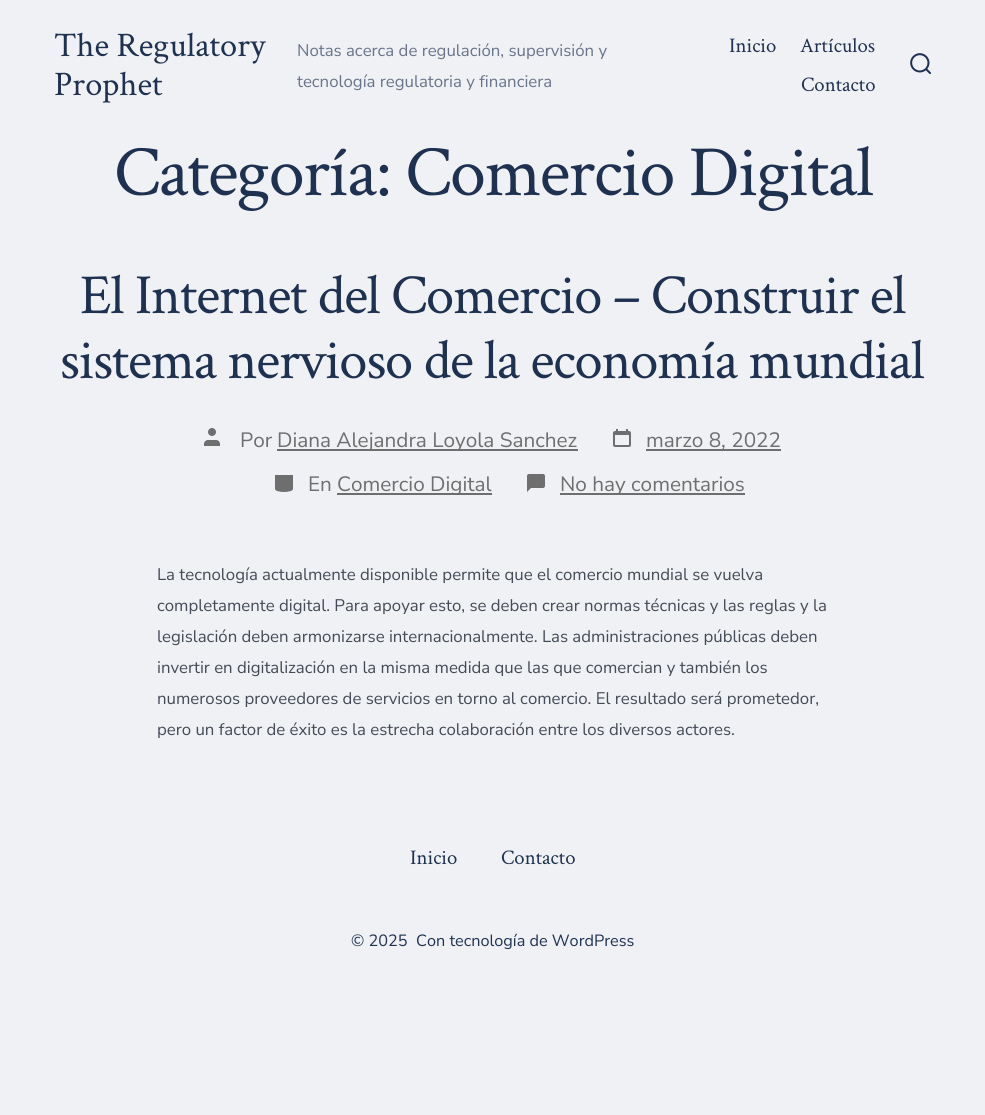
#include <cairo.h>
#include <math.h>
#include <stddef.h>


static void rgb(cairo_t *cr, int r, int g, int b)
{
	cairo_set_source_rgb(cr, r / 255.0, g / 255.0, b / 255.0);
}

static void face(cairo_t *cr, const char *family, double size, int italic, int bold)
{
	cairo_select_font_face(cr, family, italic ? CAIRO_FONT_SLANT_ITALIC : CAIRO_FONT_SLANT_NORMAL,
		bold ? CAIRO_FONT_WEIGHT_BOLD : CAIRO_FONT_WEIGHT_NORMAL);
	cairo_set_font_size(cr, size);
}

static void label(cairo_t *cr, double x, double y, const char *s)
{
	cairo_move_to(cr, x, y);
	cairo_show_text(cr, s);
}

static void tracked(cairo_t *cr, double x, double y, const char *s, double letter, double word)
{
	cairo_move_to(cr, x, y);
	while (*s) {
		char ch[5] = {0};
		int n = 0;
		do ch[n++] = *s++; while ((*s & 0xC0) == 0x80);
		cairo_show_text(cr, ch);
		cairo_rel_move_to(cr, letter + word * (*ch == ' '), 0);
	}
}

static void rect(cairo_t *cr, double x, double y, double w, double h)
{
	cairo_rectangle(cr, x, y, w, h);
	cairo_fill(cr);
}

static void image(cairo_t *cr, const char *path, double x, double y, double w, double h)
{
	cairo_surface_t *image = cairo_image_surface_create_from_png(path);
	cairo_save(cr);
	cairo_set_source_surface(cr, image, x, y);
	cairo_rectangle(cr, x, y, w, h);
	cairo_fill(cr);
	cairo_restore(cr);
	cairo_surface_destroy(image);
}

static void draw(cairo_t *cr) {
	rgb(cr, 240, 241, 244);
	cairo_paint(cr);
	face(cr, "Crimson Text", 34.5, 0, 0);
	rgb(cr, 31, 49, 81);
	label(cr, 54, 56, "The Regulatory");
	label(cr, 54, 95, "Prophet");
	face(cr, "Nunito Sans", 16.8, 0, 0);
	rgb(cr, 104, 116, 138);
	label(cr, 297, 56, "Notas acerca de regulación, supervisión y");
	label(cr, 297, 87, "tecnología regulatoria y financiera");
	face(cr, "Crimson Text", 20.75, 0, 0);
	rgb(cr, 31, 49, 81);
	label(cr, 729, 52, "Inicio");
	label(cr, 800, 52, "Artículos");
	label(cr, 801, 91, "Contacto");
	image(cr, "image0.png", 910, 53, 21, 21);
	face(cr, "Crimson Text", 72.25, 0, 0);
	tracked(cr, 114, 195, "Categoría: Comercio Digital", -1.45, 0);
	face(cr, "Crimson Text", 56.6, 0, 0);
	tracked(cr, 80, 313, "El Internet del Comercio – Construir el", -1.15, 0);
	tracked(cr, 60, 378, "sistema nervioso de la economía mundial", -1.15, 0);
	image(cr, "image1.png", 204, 428, 16, 18);
	face(cr, "Nunito Sans", 20.75, 0, 0);
	rgb(cr, 110, 110, 110);
	label(cr, 240, 447, "Por");
	rect(cr, 277, 449, 301, 2);
	label(cr, 277, 447, "Diana Alejandra Loyola Sanchez");
	image(cr, "image2.png", 613, 429, 18, 18);
	rect(cr, 646, 449, 135, 2);
	label(cr, 646, 447, "marzo 8, 2022");
	image(cr, "image3.png", 275, 475, 18, 17);
	label(cr, 308, 491, "En");
	rect(cr, 337, 493, 155, 2);
	label(cr, 337, 491, "Comercio Digital");
	image(cr, "image4.png", 527, 474, 18, 18);
	rect(cr, 560, 493, 185, 2);
	label(cr, 560, 491, "No hay comentarios");
	face(cr, "Nunito Sans", 16.8, 0, 0);
	rgb(cr, 67, 74, 86);
	label(cr, 157, 580, "La tecnología actualmente disponible permite que el comercio mundial se vuelva");
	label(cr, 157, 611, "completamente digital. Para apoyar esto, se deben crear normas técnicas y las reglas y la");
	label(cr, 157, 642, "legislación deben armonizarse internacionalmente. Las administraciones públicas deben");
	label(cr, 157, 673, "invertir en digitalización en la misma medida que las que comercian y también los");
	label(cr, 157, 704, "numerosos proveedores de servicios en torno al comercio. El resultado será prometedor,");
	label(cr, 157, 735, "pero un factor de éxito es la estrecha colaboración entre los diversos actores.");
	face(cr, "Crimson Text", 20.75, 0, 0);
	rgb(cr, 31, 49, 81);
	label(cr, 410, 864, "Inicio");
	label(cr, 501, 864, "Contacto");
	face(cr, "Nunito Sans", 16.25, 0, 0);
	label(cr, 351, 946, "© 2025");
	label(cr, 416, 946, "Con tecnología de WordPress");
}

int main(void) {
	cairo_surface_t *surface = cairo_image_surface_create(CAIRO_FORMAT_RGB24, 985, 1115);
	cairo_t *cr = cairo_create(surface);
	cairo_font_options_t *options = cairo_font_options_create();
	cairo_font_options_set_hint_metrics(options, CAIRO_HINT_METRICS_OFF);
	cairo_font_options_set_hint_style(options, CAIRO_HINT_STYLE_NONE);
	cairo_set_font_options(cr, options);
	cairo_set_miter_limit(cr, 4);
	draw(cr);
	cairo_surface_write_to_png(surface, "render.png");
	cairo_font_options_destroy(options);
	cairo_destroy(cr);
	cairo_surface_destroy(surface);
	return 0;
}
